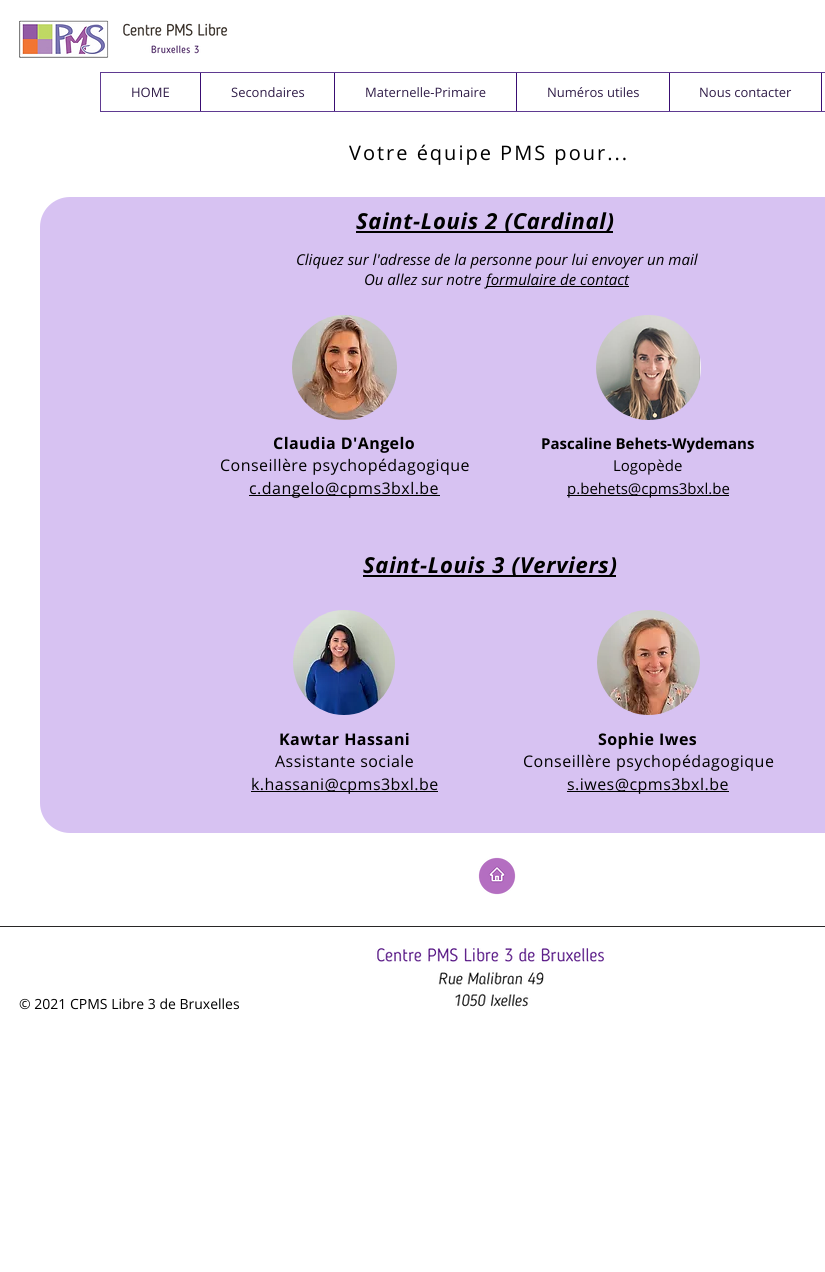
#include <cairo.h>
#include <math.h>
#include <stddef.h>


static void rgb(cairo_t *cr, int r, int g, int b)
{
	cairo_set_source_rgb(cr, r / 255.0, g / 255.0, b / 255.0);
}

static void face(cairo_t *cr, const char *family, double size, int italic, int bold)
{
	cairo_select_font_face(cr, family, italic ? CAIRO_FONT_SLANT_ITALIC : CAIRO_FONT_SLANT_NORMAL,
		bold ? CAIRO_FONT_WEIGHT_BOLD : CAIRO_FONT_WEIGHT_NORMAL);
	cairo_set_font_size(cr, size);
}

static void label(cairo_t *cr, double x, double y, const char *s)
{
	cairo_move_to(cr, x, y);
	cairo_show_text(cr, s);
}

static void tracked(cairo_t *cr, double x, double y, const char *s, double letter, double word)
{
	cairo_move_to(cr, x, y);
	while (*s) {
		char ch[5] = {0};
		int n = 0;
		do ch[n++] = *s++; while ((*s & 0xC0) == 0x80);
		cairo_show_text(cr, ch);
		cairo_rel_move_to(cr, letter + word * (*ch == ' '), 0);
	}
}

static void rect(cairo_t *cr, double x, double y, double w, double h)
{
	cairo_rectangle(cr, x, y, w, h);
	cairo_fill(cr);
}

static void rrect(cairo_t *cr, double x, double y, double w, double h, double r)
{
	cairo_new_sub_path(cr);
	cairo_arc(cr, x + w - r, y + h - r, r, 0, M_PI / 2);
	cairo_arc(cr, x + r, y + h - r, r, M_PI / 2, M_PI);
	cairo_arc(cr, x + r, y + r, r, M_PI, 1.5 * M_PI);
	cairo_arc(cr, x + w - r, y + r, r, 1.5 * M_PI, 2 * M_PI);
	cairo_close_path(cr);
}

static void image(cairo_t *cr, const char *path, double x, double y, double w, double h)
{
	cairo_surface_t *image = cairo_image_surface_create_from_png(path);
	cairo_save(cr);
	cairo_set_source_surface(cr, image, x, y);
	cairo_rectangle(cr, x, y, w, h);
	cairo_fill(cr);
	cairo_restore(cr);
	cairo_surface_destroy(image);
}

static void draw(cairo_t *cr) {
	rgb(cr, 255, 255, 255);
	cairo_paint(cr);
	image(cr, "image0.png", 19, 20, 209, 38);
	cairo_rectangle(cr, 100.5, 72.5, 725, 39);
	rgb(cr, 95, 58, 145);
	cairo_set_line_width(cr, 1);
	cairo_stroke(cr);
	face(cr, "Open Sans", 13, 0, 0);
	rgb(cr, 48, 29, 72);
	label(cr, 131, 97, "HOME");
	rgb(cr, 57, 13, 114);
	rect(cr, 200, 73, 1, 38);
	rgb(cr, 48, 29, 72);
	label(cr, 231, 97, "Secondaires");
	rgb(cr, 57, 13, 114);
	rect(cr, 334, 73, 1, 38);
	rgb(cr, 48, 29, 72);
	label(cr, 365, 97, "Maternelle-Primaire");
	rgb(cr, 57, 13, 114);
	rect(cr, 516, 73, 1, 38);
	rgb(cr, 48, 29, 72);
	label(cr, 547, 97, "Numéros utiles");
	rgb(cr, 57, 13, 114);
	rect(cr, 669, 73, 1, 38);
	rgb(cr, 48, 29, 72);
	label(cr, 699, 97, "Nous contacter");
	rgb(cr, 57, 13, 114);
	rect(cr, 821, 73, 1, 38);
	face(cr, "Open Sans", 20, 0, 0);
	rgb(cr, 0, 0, 0);
	tracked(cr, 349, 160, "Votre équipe PMS pour...", 2, 0);
	rgb(cr, 215, 194, 242);
	rrect(cr, 40, 197, 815, 636, 30);
	cairo_fill(cr);
	rgb(cr, 0, 0, 0);
	rect(cr, 356, 231, 257, 2);
	face(cr, "Open Sans", 22, 1, 1);
	tracked(cr, 356, 229, "Saint-Louis 2 (Cardinal)", 0.7, 0);
	face(cr, "Open Sans", 15, 1, 0);
	label(cr, 296, 265, "Cliquez sur l'adresse de la personne pour lui envoyer un mail");
	label(cr, 364, 285, "Ou allez sur notre");
	rect(cr, 486, 286, 143, 1);
	label(cr, 486, 285, "formulaire de contact");
	image(cr, "image1.png", 292, 315, 105, 105);
	image(cr, "image2.png", 596, 315, 105, 105);
	face(cr, "Open Sans", 16, 0, 1);
	tracked(cr, 273, 449, "Claudia D'Angelo", 0.45, 0);
	face(cr, "Open Sans", 16, 0, 0);
	tracked(cr, 220, 471, "Conseillère psychopédagogique", 0.45, 0);
	rect(cr, 249, 495, 191, 1);
	tracked(cr, 249, 494, "c.dangelo@cpms3bxl.be", 0.45, 0);
	face(cr, "Open Sans", 15, 0, 1);
	label(cr, 541, 449, "Pascaline Behets-Wydemans");
	face(cr, "Open Sans", 15, 0, 0);
	label(cr, 613, 471, "Logopède");
	rect(cr, 567, 495, 162, 1);
	label(cr, 567, 494, "p.behets@cpms3bxl.be");
	rect(cr, 363, 575, 253, 2);
	face(cr, "Open Sans", 22, 1, 1);
	tracked(cr, 363, 573, "Saint-Louis 3 (Verviers)", 0.7, 0);
	image(cr, "image3.png", 293, 610, 102, 105);
	image(cr, "image4.png", 597, 610, 103, 105);
	face(cr, "Open Sans", 16, 0, 1);
	tracked(cr, 279, 745, "Kawtar Hassani", 0.45, 0);
	face(cr, "Open Sans", 16, 0, 0);
	tracked(cr, 275, 767, "Assistante sociale", 0.45, 0);
	rect(cr, 251, 791, 187, 1);
	tracked(cr, 251, 790, "k.hassani@cpms3bxl.be", 0.45, 0);
	face(cr, "Open Sans", 16, 0, 1);
	tracked(cr, 598, 745, "Sophie Iwes", 0.45, 0);
	face(cr, "Open Sans", 16, 0, 0);
	tracked(cr, 523, 767, "Conseillère psychopédagogique", 0.5, 0);
	rect(cr, 567, 791, 162, 1);
	tracked(cr, 567, 790, "s.iwes@cpms3bxl.be", 0.45, 0);
	image(cr, "image5.png", 478, 857, 38, 38);
	rgb(cr, 40, 38, 38);
	rect(cr, 0, 926, 825, 1);
	face(cr, "Open Sans", 14, 0, 0);
	rgb(cr, 0, 0, 0);
	label(cr, 19, 1009, "© 2021 CPMS Libre 3 de Bruxelles");
	image(cr, "image6.png", 375, 948, 229, 59);
}

int main(void) {
	cairo_surface_t *surface = cairo_image_surface_create(CAIRO_FORMAT_RGB24, 825, 1272);
	cairo_t *cr = cairo_create(surface);
	cairo_font_options_t *options = cairo_font_options_create();
	cairo_font_options_set_hint_metrics(options, CAIRO_HINT_METRICS_OFF);
	cairo_font_options_set_hint_style(options, CAIRO_HINT_STYLE_NONE);
	cairo_set_font_options(cr, options);
	cairo_set_miter_limit(cr, 4);
	draw(cr);
	cairo_surface_write_to_png(surface, "render.png");
	cairo_font_options_destroy(options);
	cairo_destroy(cr);
	cairo_surface_destroy(surface);
	return 0;
}
